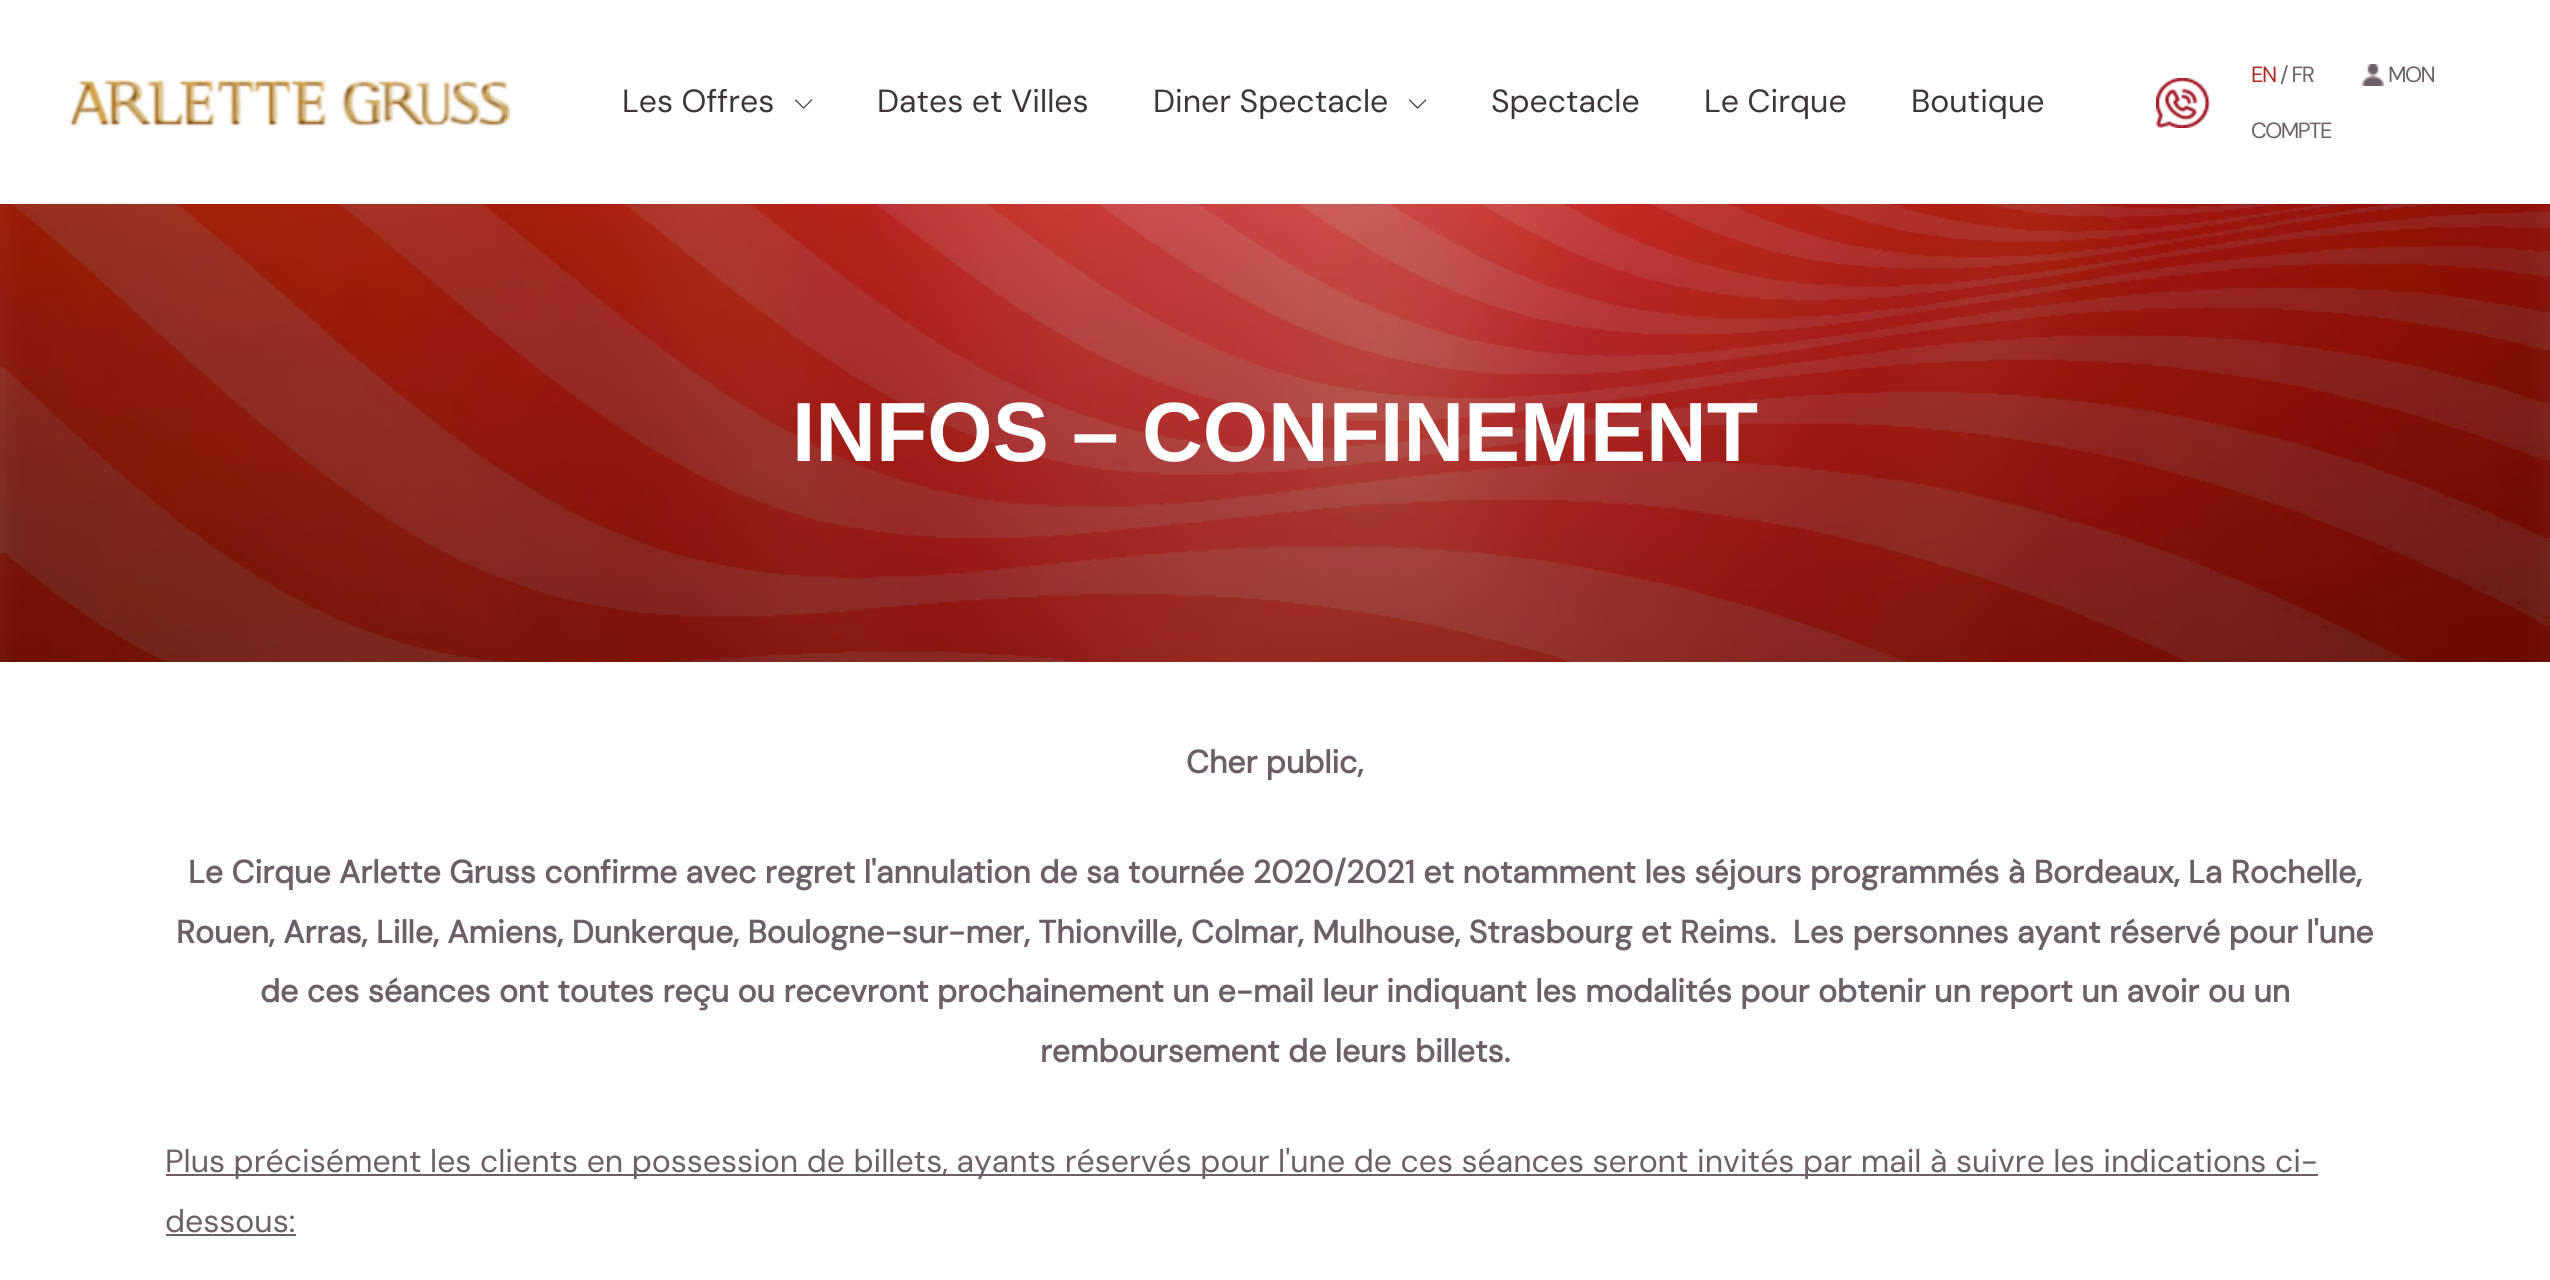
#include <cairo.h>
#include <math.h>
#include <stddef.h>


static void rgb(cairo_t *cr, int r, int g, int b)
{
	cairo_set_source_rgb(cr, r / 255.0, g / 255.0, b / 255.0);
}

static void face(cairo_t *cr, const char *family, double size, int italic, int bold)
{
	cairo_select_font_face(cr, family, italic ? CAIRO_FONT_SLANT_ITALIC : CAIRO_FONT_SLANT_NORMAL,
		bold ? CAIRO_FONT_WEIGHT_BOLD : CAIRO_FONT_WEIGHT_NORMAL);
	cairo_set_font_size(cr, size);
}

static void label(cairo_t *cr, double x, double y, const char *s)
{
	cairo_move_to(cr, x, y);
	cairo_show_text(cr, s);
}

static void tracked(cairo_t *cr, double x, double y, const char *s, double letter, double word)
{
	cairo_move_to(cr, x, y);
	while (*s) {
		char ch[5] = {0};
		int n = 0;
		do ch[n++] = *s++; while ((*s & 0xC0) == 0x80);
		cairo_show_text(cr, ch);
		cairo_rel_move_to(cr, letter + word * (*ch == ' '), 0);
	}
}

static void rect(cairo_t *cr, double x, double y, double w, double h)
{
	cairo_rectangle(cr, x, y, w, h);
	cairo_fill(cr);
}

static void image(cairo_t *cr, const char *path, double x, double y, double w, double h)
{
	cairo_surface_t *image = cairo_image_surface_create_from_png(path);
	cairo_save(cr);
	cairo_set_source_surface(cr, image, x, y);
	cairo_rectangle(cr, x, y, w, h);
	cairo_fill(cr);
	cairo_restore(cr);
	cairo_surface_destroy(image);
}

static void draw(cairo_t *cr) {
	rgb(cr, 255, 255, 255);
	cairo_paint(cr);
	image(cr, "image0.png", 70, 80, 440, 46);
	face(cr, "DM Sans", 32, 0, 0);
	rgb(cr, 62, 53, 59);
	label(cr, 622, 112, "Les Offres");
	image(cr, "image1.png", 795, 99, 18, 10);
	label(cr, 877, 112, "Dates et Villes");
	label(cr, 1153, 112, "Diner Spectacle");
	image(cr, "image1.png", 1409, 99, 18, 10);
	label(cr, 1491, 112, "Spectacle");
	label(cr, 1704, 112, "Le Cirque");
	label(cr, 1911, 112, "Boutique");
	image(cr, "image2.png", 2156, 78, 54, 50);
	face(cr, "DM Sans", 22, 0, 0);
	rgb(cr, 175, 40, 40);
	tracked(cr, 2251, 82, "EN", -1.5, 0);
	rgb(cr, 108, 95, 105);
	tracked(cr, 2280, 82, "/ FR", -1.5, 0);
	image(cr, "image3.png", 2362, 64, 22, 22);
	tracked(cr, 2388, 82, "MON", -1.5, 0);
	tracked(cr, 2251, 138, "COMPTE", -1.5, 0);
	image(cr, "image4.png", 0, 204, 2550, 458);
	face(cr, "Liberation Sans", 84, 0, 1);
	rgb(cr, 255, 255, 255);
	label(cr, 792, 461, "INFOS – CONFINEMENT");
	face(cr, "DM Sans", 32, 0, 1);
	rgb(cr, 108, 95, 105);
	label(cr, 1186, 773, "Cher public,");
	label(cr, 188, 883, "Le Cirque Arlette Gruss confirme avec regret l'annulation de sa tournée 2020/2021 et notamment les séjours programmés à Bordeaux, La Rochelle,");
	label(cr, 176, 943, "Rouen, Arras, Lille, Amiens, Dunkerque, Boulogne-sur-mer, Thionville, Colmar, Mulhouse, Strasbourg et Reims.  Les personnes ayant réservé pour l'une");
	label(cr, 260, 1002, "de ces séances ont toutes reçu ou recevront prochainement un e-mail leur indiquant les modalités pour obtenir un report un avoir ou un");
	label(cr, 1040, 1062, "remboursement de leurs billets.");
	rect(cr, 166, 1174, 2152, 2);
	face(cr, "DM Sans", 32, 0, 0);
	label(cr, 165, 1172, "Plus précisément les clients en possession de billets, ayants réservés pour l'une de ces séances seront invités par mail à suivre les indications ci-");
	label(cr, 165, 1232, "dessous:");
	rect(cr, 166, 1234, 130, 2);
}

int main(void) {
	cairo_surface_t *surface = cairo_image_surface_create(CAIRO_FORMAT_RGB24, 2550, 1280);
	cairo_t *cr = cairo_create(surface);
	cairo_font_options_t *options = cairo_font_options_create();
	cairo_font_options_set_hint_metrics(options, CAIRO_HINT_METRICS_OFF);
	cairo_font_options_set_hint_style(options, CAIRO_HINT_STYLE_NONE);
	cairo_set_font_options(cr, options);
	cairo_set_miter_limit(cr, 4);
	draw(cr);
	cairo_surface_write_to_png(surface, "render.png");
	cairo_font_options_destroy(options);
	cairo_destroy(cr);
	cairo_surface_destroy(surface);
	return 0;
}
